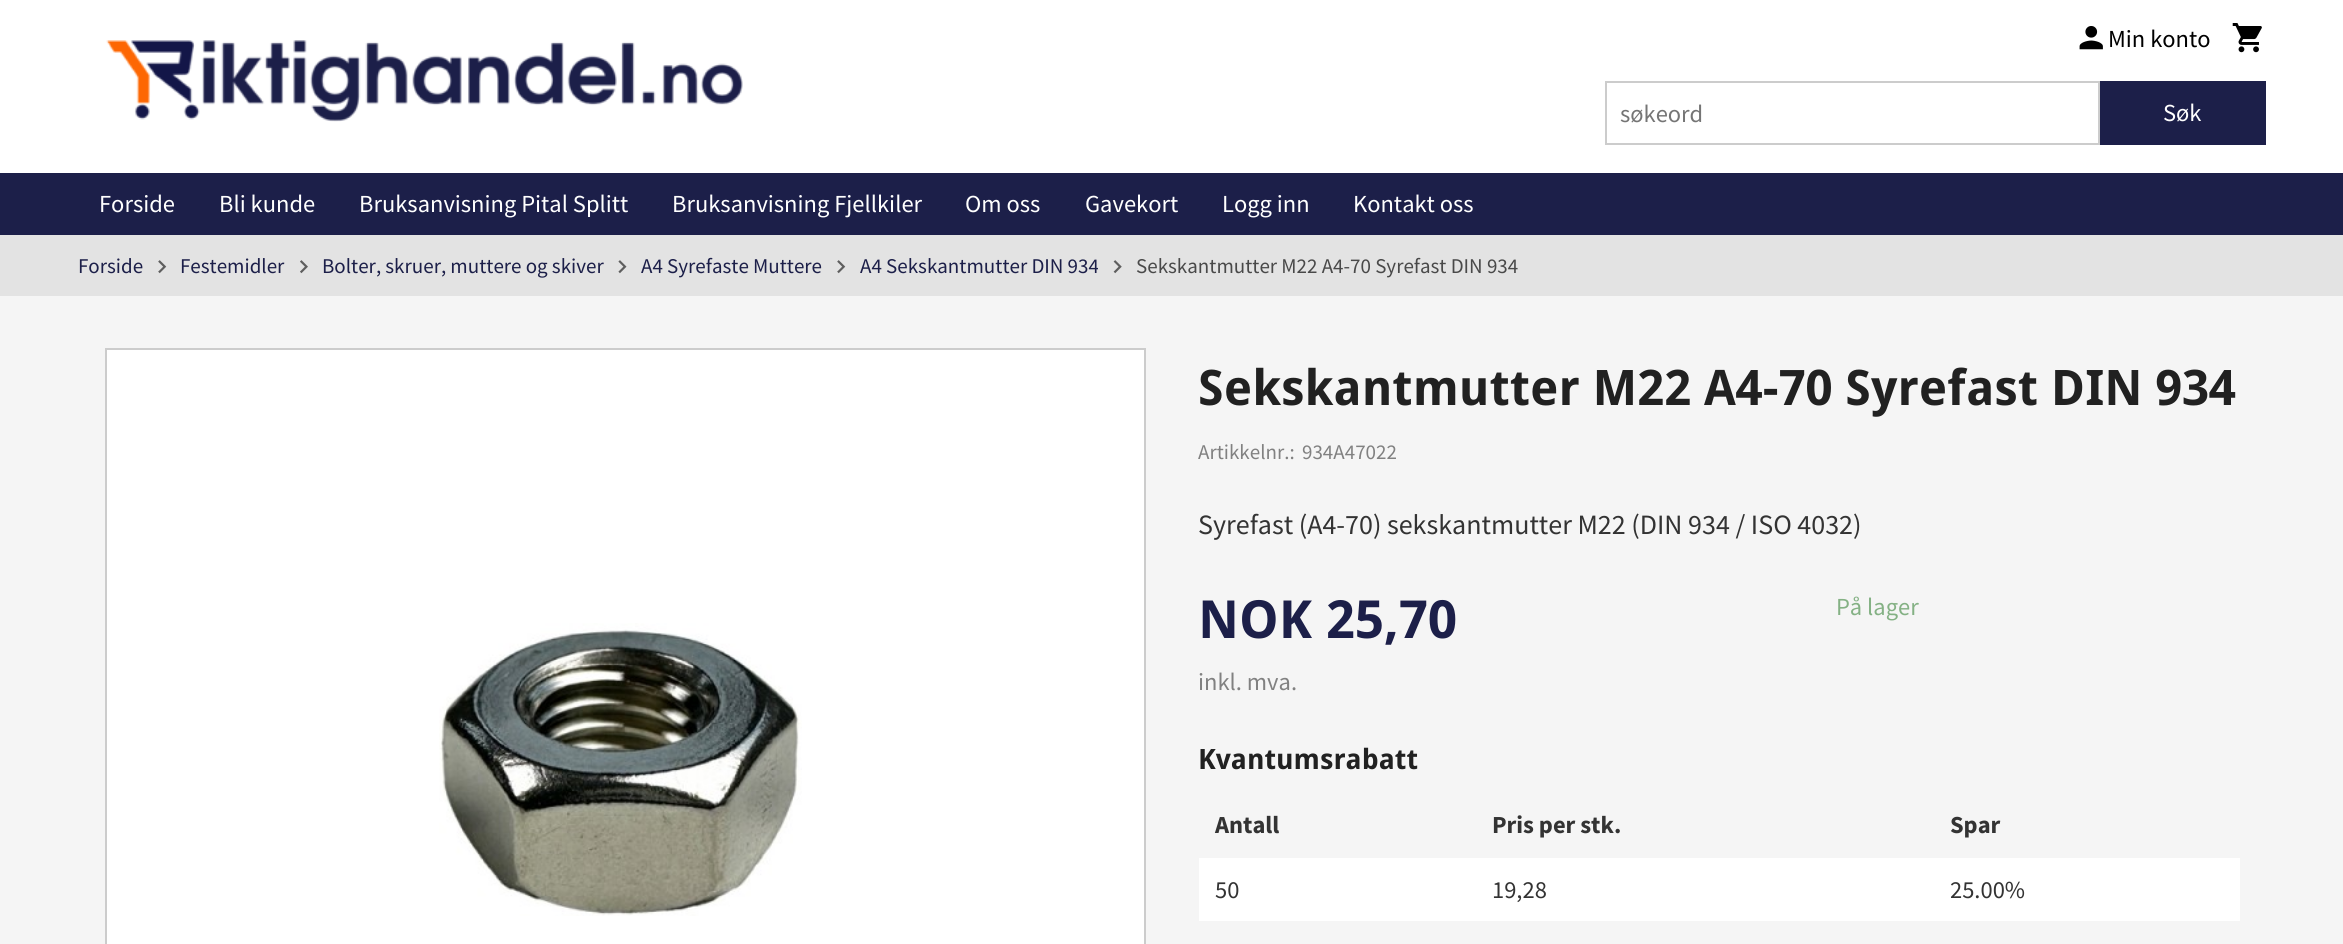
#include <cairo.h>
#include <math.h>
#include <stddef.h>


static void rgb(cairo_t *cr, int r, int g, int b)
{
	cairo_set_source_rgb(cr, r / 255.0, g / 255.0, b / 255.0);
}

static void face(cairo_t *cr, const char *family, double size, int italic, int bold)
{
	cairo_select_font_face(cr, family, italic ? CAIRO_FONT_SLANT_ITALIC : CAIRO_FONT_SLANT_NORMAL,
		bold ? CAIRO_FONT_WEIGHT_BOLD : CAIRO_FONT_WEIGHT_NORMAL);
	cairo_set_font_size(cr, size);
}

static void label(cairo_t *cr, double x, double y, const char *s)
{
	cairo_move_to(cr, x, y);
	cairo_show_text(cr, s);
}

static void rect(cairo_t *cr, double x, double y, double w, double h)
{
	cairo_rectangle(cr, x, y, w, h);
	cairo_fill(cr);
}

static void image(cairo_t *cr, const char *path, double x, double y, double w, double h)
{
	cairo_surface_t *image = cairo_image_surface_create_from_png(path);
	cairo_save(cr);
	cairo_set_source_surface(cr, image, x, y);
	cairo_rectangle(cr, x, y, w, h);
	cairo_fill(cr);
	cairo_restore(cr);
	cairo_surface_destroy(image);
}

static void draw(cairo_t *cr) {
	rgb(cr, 245, 245, 245);
	cairo_paint(cr);
	rgb(cr, 255, 255, 255);
	rect(cr, 0, 0, 2343, 173);
	image(cr, "image0.png", 106, 40, 637, 82);
	image(cr, "image1.png", 2079, 26, 24, 24);
	face(cr, "Source Sans Pro", 24.5, 0, 0);
	rgb(cr, 0, 0, 0);
	label(cr, 2108, 47, "Min konto");
	image(cr, "image2.png", 2232, 23, 30, 30);
	cairo_rectangle(cr, 1606, 82, 493, 62);
	rgb(cr, 204, 204, 204);
	cairo_stroke(cr);
	rgb(cr, 117, 117, 117);
	label(cr, 1620, 122, "søkeord");
	rgb(cr, 28, 31, 73);
	rect(cr, 2100, 81, 166, 64);
	rgb(cr, 255, 255, 255);
	label(cr, 2163, 121, "Søk");
	rgb(cr, 28, 31, 73);
	rect(cr, 0, 173, 2343, 62);
	rgb(cr, 255, 255, 255);
	label(cr, 99, 212, "Forside");
	label(cr, 219, 212, "Bli kunde");
	label(cr, 359, 212, "Bruksanvisning Pital Splitt");
	label(cr, 672, 212, "Bruksanvisning Fjellkiler");
	label(cr, 965, 212, "Om oss");
	label(cr, 1085, 212, "Gavekort");
	label(cr, 1222, 212, "Logg inn");
	label(cr, 1353, 212, "Kontakt oss");
	rgb(cr, 227, 227, 227);
	rect(cr, 0, 235, 2343, 61);
	face(cr, "Source Sans Pro", 21, 0, 0);
	rgb(cr, 28, 31, 73);
	label(cr, 78, 273, "Forside");
	image(cr, "image3.png", 158, 260, 9, 14);
	label(cr, 180, 273, "Festemidler");
	image(cr, "image4.png", 300, 260, 8, 14);
	label(cr, 322, 273, "Bolter, skruer, muttere og skiver");
	image(cr, "image5.png", 618, 260, 9, 14);
	label(cr, 641, 273, "A4 Syrefaste Muttere");
	image(cr, "image3.png", 837, 260, 9, 14);
	label(cr, 860, 273, "A4 Sekskantmutter DIN 934");
	image(cr, "image6.png", 1113, 260, 9, 14);
	rgb(cr, 73, 73, 73);
	label(cr, 1136, 273, "Sekskantmutter M22 A4-70 Syrefast DIN 934");
	rgb(cr, 255, 255, 255);
	cairo_rectangle(cr, 106, 349, 1039, 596);
	cairo_fill_preserve(cr);
	rgb(cr, 204, 204, 204);
	cairo_stroke(cr);
	image(cr, "image7.png", 439, 623, 363, 293);
	face(cr, "Droid Sans", 49, 0, 1);
	rgb(cr, 33, 33, 33);
	label(cr, 1198, 405, "Sekskantmutter M22 A4-70 Syrefast DIN 934");
	face(cr, "Source Sans Pro", 21, 0, 0);
	rgb(cr, 129, 129, 129);
	label(cr, 1198, 459, "Artikkelnr.:");
	label(cr, 1302, 459, "934A47022");
	face(cr, "Source Sans Pro", 28, 0, 0);
	rgb(cr, 51, 51, 51);
	label(cr, 1198, 534, "Syrefast (A4-70) sekskantmutter M22 (DIN 934 / ISO 4032)");
	face(cr, "Droid Sans", 52.5, 0, 1);
	rgb(cr, 28, 31, 73);
	label(cr, 1198, 638, "NOK");
	label(cr, 1326, 638, "25,70");
	face(cr, "Source Sans Pro", 24.5, 0, 0);
	rgb(cr, 129, 129, 129);
	label(cr, 1198, 690, "inkl. mva.");
	rgb(cr, 132, 177, 132);
	label(cr, 1836, 615, "På lager");
	face(cr, "Droid Sans", 28, 0, 1);
	rgb(cr, 33, 33, 33);
	label(cr, 1198, 769, "Kvantumsrabatt");
	rgb(cr, 255, 255, 255);
	rect(cr, 1199, 858, 1041, 63);
	face(cr, "Source Sans Pro", 24.5, 0, 1);
	rgb(cr, 51, 51, 51);
	label(cr, 1215, 833, "Antall");
	label(cr, 1492, 833, "Pris per stk.");
	label(cr, 1950, 833, "Spar");
	face(cr, "Source Sans Pro", 24.5, 0, 0);
	label(cr, 1215, 898, "50");
	label(cr, 1492, 898, "19,28");
	label(cr, 1950, 898, "25.00%");
}

int main(void) {
	cairo_surface_t *surface = cairo_image_surface_create(CAIRO_FORMAT_RGB24, 2343, 944);
	cairo_t *cr = cairo_create(surface);
	cairo_font_options_t *options = cairo_font_options_create();
	cairo_font_options_set_hint_metrics(options, CAIRO_HINT_METRICS_OFF);
	cairo_font_options_set_hint_style(options, CAIRO_HINT_STYLE_NONE);
	cairo_set_font_options(cr, options);
	cairo_set_miter_limit(cr, 4);
	draw(cr);
	cairo_surface_write_to_png(surface, "render.png");
	cairo_font_options_destroy(options);
	cairo_destroy(cr);
	cairo_surface_destroy(surface);
	return 0;
}
